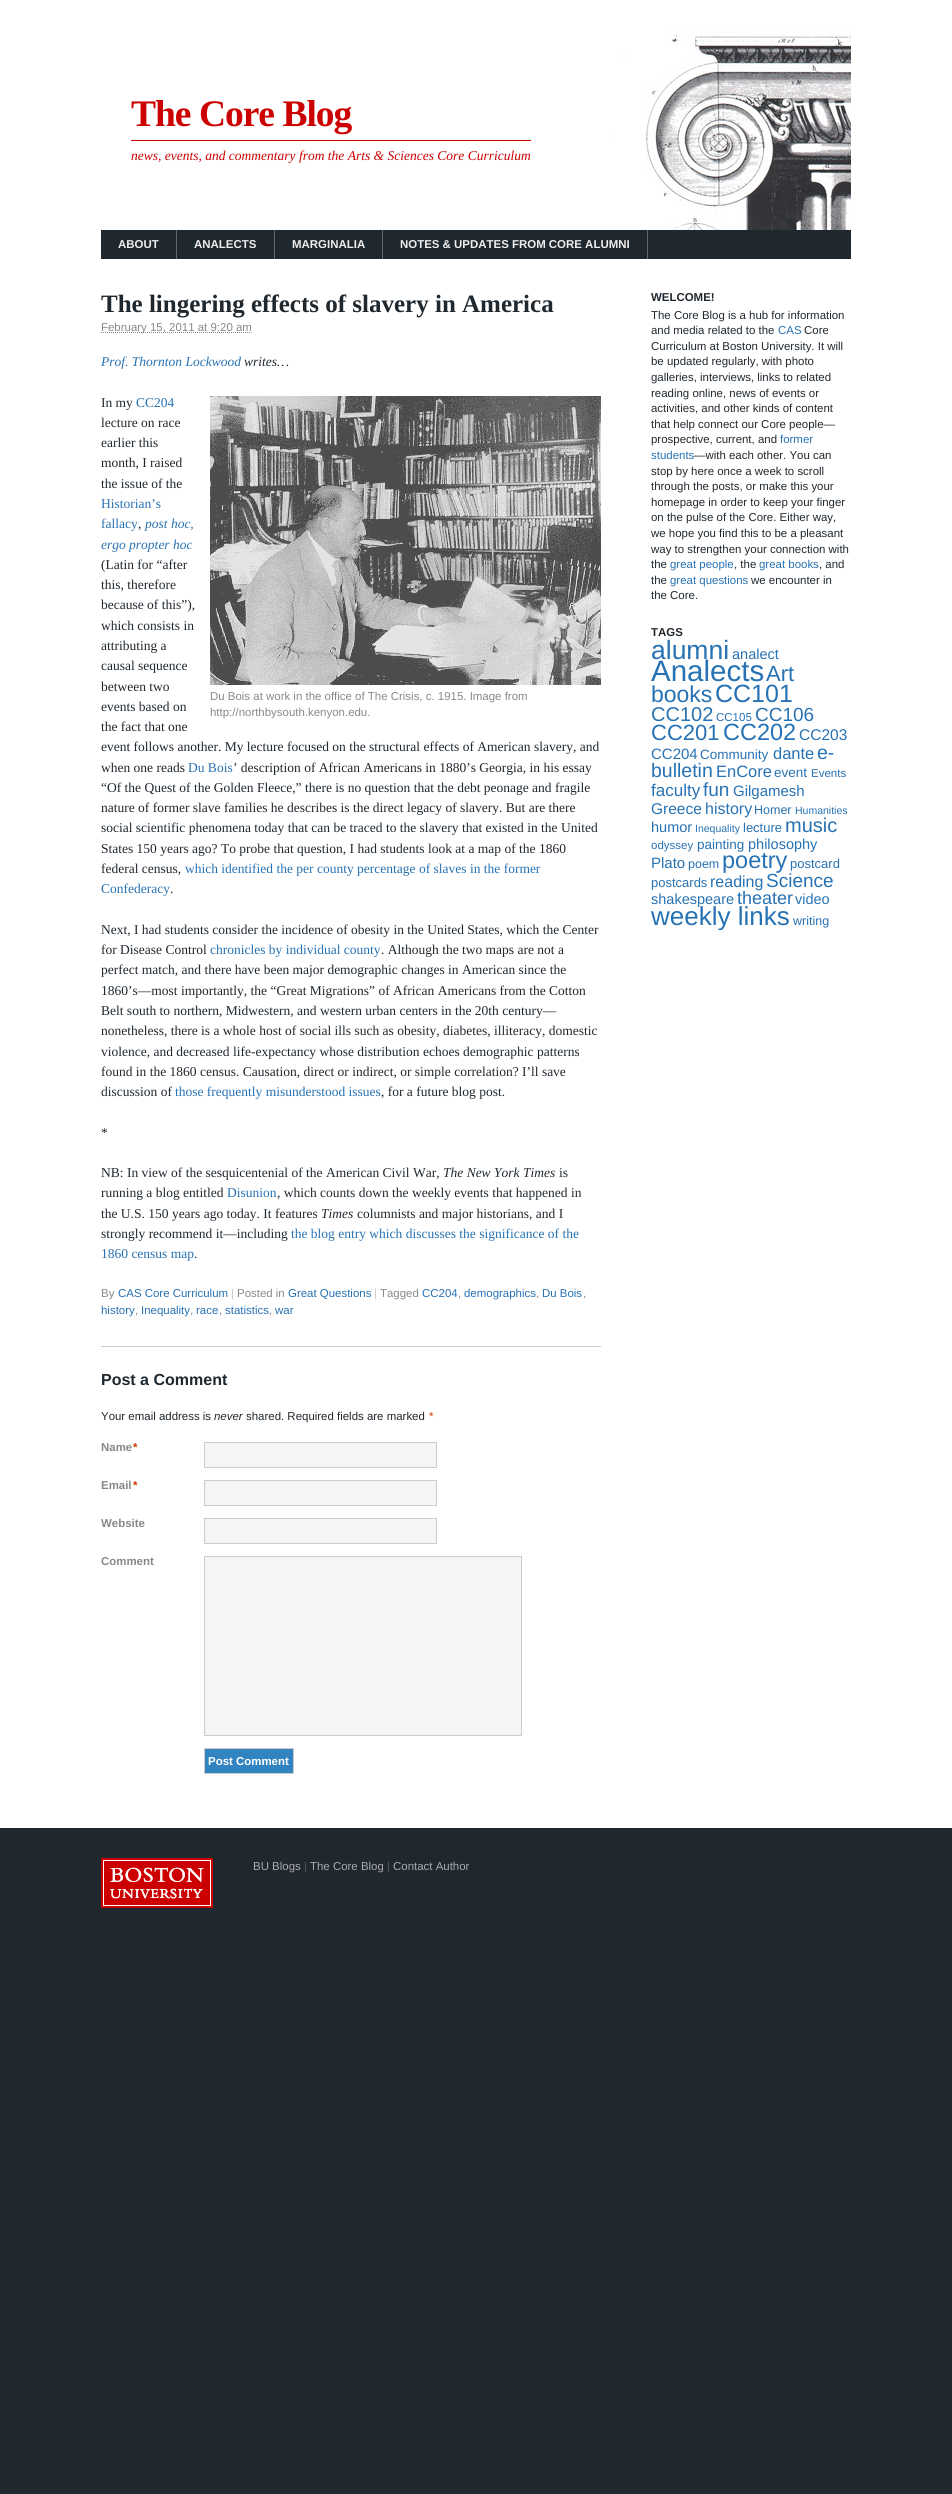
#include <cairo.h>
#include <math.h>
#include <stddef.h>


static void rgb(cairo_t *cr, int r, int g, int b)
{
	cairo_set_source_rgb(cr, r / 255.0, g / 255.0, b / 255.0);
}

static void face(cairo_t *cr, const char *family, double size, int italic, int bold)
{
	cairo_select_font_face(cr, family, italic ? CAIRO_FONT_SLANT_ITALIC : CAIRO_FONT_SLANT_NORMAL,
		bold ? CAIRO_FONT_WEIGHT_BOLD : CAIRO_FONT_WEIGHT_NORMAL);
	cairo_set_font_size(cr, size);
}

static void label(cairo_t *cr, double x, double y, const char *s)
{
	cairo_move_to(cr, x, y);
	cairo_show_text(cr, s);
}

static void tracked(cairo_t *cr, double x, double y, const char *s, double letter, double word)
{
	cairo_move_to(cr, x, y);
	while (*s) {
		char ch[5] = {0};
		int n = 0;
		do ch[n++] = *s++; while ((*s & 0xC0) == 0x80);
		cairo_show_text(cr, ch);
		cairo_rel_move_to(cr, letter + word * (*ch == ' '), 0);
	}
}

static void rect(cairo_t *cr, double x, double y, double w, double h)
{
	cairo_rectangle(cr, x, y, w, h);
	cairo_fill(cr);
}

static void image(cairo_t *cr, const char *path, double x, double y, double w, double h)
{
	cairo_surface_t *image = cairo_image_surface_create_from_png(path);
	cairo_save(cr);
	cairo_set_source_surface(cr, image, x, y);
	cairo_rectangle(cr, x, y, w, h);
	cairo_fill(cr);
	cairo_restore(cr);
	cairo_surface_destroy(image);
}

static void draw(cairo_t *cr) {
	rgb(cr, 32, 40, 47);
	cairo_paint(cr);
	rgb(cr, 255, 255, 255);
	rect(cr, 0, 0, 952, 1828);
	image(cr, "image0.png", 101, 30, 750, 200);
	face(cr, "Liberation Serif", 37.5, 0, 1);
	rgb(cr, 204, 0, 0);
	tracked(cr, 131, 126, "The Core Blog", -1, 0);
	face(cr, "Liberation Serif", 13.5, 1, 0);
	label(cr, 131, 160, "news, events, and commentary from the Arts & Sciences Core Curriculum");
	rect(cr, 131, 140, 400, 1);
	rgb(cr, 32, 40, 47);
	rect(cr, 101, 230, 750, 29);
	rgb(cr, 102, 102, 102);
	rect(cr, 176, 230, 1, 29);
	face(cr, "Liberation Sans", 11.45, 0, 1);
	rgb(cr, 238, 238, 238);
	label(cr, 118, 248, "ABOUT");
	rgb(cr, 102, 102, 102);
	rect(cr, 274, 230, 1, 29);
	rgb(cr, 238, 238, 238);
	label(cr, 194, 248, "ANALECTS");
	rgb(cr, 102, 102, 102);
	rect(cr, 382, 230, 1, 29);
	rgb(cr, 238, 238, 238);
	label(cr, 292, 248, "MARGINALIA");
	rgb(cr, 102, 102, 102);
	rect(cr, 647, 230, 1, 29);
	rgb(cr, 238, 238, 238);
	label(cr, 400, 248, "NOTES & UPDATES FROM CORE ALUMNI");
	rgb(cr, 204, 204, 204);
	rect(cr, 101, 1346, 500, 1);
	face(cr, "Liberation Serif", 25, 0, 1);
	rgb(cr, 32, 40, 47);
	label(cr, 101, 312, "The lingering effects of slavery in America");
	cairo_new_path(cr);
	cairo_move_to(cr, 101, 332.5);
	cairo_line_to(cr, 251.5, 332.5);
	rgb(cr, 136, 136, 136);
	cairo_set_line_width(cr, 1);
	cairo_set_dash(cr, (double[]){1, 1}, 2, 0);
	cairo_stroke(cr);
	face(cr, "Liberation Sans", 11.45, 0, 0);
	label(cr, 101, 331, "February 15, 2011 at 9:20 am");
	face(cr, "Liberation Serif", 13.5, 1, 0);
	rgb(cr, 39, 114, 179);
	label(cr, 101, 366, "Prof. Thornton Lockwood");
	rgb(cr, 32, 40, 47);
	label(cr, 244, 366, "writes…");
	face(cr, "Liberation Serif", 13.5, 0, 0);
	label(cr, 101, 407, "In my");
	rgb(cr, 39, 114, 179);
	label(cr, 136, 407, "CC204");
	rgb(cr, 32, 40, 47);
	label(cr, 101, 427, "lecture on race");
	label(cr, 101, 447, "earlier this");
	label(cr, 101, 467, "month, I raised");
	label(cr, 101, 488, "the issue of the");
	rgb(cr, 39, 114, 179);
	label(cr, 101, 508, "Historian’s");
	label(cr, 101, 528, "fallacy");
	rgb(cr, 32, 40, 47);
	label(cr, 138, 528, ",");
	face(cr, "Liberation Serif", 13.5, 1, 0);
	rgb(cr, 39, 114, 179);
	label(cr, 145, 528, "post hoc,");
	label(cr, 101, 549, "ergo propter hoc");
	face(cr, "Liberation Serif", 13.5, 0, 0);
	rgb(cr, 32, 40, 47);
	label(cr, 101, 569, "(Latin for “after");
	label(cr, 101, 589, "this, therefore");
	label(cr, 101, 609, "because of this”),");
	label(cr, 101, 630, "which consists in");
	label(cr, 101, 650, "attributing a");
	label(cr, 101, 670, "causal sequence");
	label(cr, 101, 691, "between two");
	label(cr, 101, 711, "events based on");
	label(cr, 101, 731, "the fact that one");
	label(cr, 101, 751, "event follows another. My lecture focused on the structural effects of American slavery, and");
	label(cr, 101, 772, "when one reads");
	rgb(cr, 39, 114, 179);
	label(cr, 188, 772, "Du Bois");
	rgb(cr, 32, 40, 47);
	label(cr, 233, 772, "’ description of African Americans in 1880’s Georgia, in his essay");
	label(cr, 101, 792, "“Of the Quest of the Golden Fleece,” there is no question that the debt peonage and fragile");
	label(cr, 101, 812, "nature of former slave families he describes is the direct legacy of slavery. But are there");
	label(cr, 101, 832, "social scientific phenomena today that can be traced to the slavery that existed in the United");
	label(cr, 101, 853, "States 150 years ago? To probe that question, I had students look at a map of the 1860");
	label(cr, 101, 873, "federal census,");
	rgb(cr, 39, 114, 179);
	label(cr, 185, 873, "which identified the per county percentage of slaves in the former");
	label(cr, 101, 893, "Confederacy");
	rgb(cr, 32, 40, 47);
	label(cr, 170, 893, ".");
	image(cr, "image1.png", 210, 396, 391, 289);
	face(cr, "Liberation Sans", 11.45, 0, 0);
	rgb(cr, 136, 136, 136);
	label(cr, 210, 700, "Du Bois at work in the office of The Crisis, c. 1915. Image from");
	label(cr, 210, 716, "http://northbysouth.kenyon.edu.");
	face(cr, "Liberation Serif", 13.5, 0, 0);
	rgb(cr, 32, 40, 47);
	label(cr, 101, 934, "Next, I had students consider the incidence of obesity in the United States, which the Center");
	label(cr, 101, 954, "for Disease Control");
	rgb(cr, 39, 114, 179);
	label(cr, 210, 954, "chronicles by individual county");
	rgb(cr, 32, 40, 47);
	label(cr, 381, 954, ". Although the two maps are not a");
	label(cr, 101, 974, "perfect match, and there have been major demographic changes in American since the");
	label(cr, 101, 995, "1860’s—most importantly, the “Great Migrations” of African Americans from the Cotton");
	label(cr, 101, 1015, "Belt south to northern, Midwestern, and western urban centers in the 20th century—");
	label(cr, 101, 1035, "nonetheless, there is a whole host of social ills such as obesity, diabetes, illiteracy, domestic");
	label(cr, 101, 1056, "violence, and decreased life-expectancy whose distribution echoes demographic patterns");
	label(cr, 101, 1076, "found in the 1860 census. Causation, direct or indirect, or simple correlation? I’ll save");
	label(cr, 101, 1096, "discussion of");
	rgb(cr, 39, 114, 179);
	label(cr, 175, 1096, "those frequently misunderstood issues");
	rgb(cr, 32, 40, 47);
	label(cr, 381, 1096, ", for a future blog post.");
	label(cr, 101, 1137, "*");
	label(cr, 101, 1177, "NB: In view of the sesquicentenial of the American Civil War,");
	face(cr, "Liberation Serif", 13.5, 1, 0);
	label(cr, 443, 1177, "The New York Times");
	face(cr, "Liberation Serif", 13.5, 0, 0);
	label(cr, 559, 1177, "is");
	label(cr, 101, 1197, "running a blog entitled");
	rgb(cr, 39, 114, 179);
	label(cr, 227, 1197, "Disunion");
	rgb(cr, 32, 40, 47);
	label(cr, 277, 1197, ", which counts down the weekly events that happened in");
	label(cr, 101, 1218, "the U.S. 150 years ago today. It features");
	face(cr, "Liberation Serif", 13.5, 1, 0);
	label(cr, 321, 1218, "Times");
	face(cr, "Liberation Serif", 13.5, 0, 0);
	label(cr, 357, 1218, "columnists and major historians, and I");
	label(cr, 101, 1238, "strongly recommend it—including");
	rgb(cr, 39, 114, 179);
	label(cr, 291, 1238, "the blog entry which discusses the significance of the");
	label(cr, 101, 1258, "1860 census map");
	rgb(cr, 32, 40, 47);
	label(cr, 194, 1258, ".");
	face(cr, "Liberation Sans", 11.45, 0, 0);
	rgb(cr, 136, 136, 136);
	label(cr, 101, 1297, "By");
	rgb(cr, 39, 114, 179);
	label(cr, 118, 1297, "CAS Core Curriculum");
	rgb(cr, 204, 204, 204);
	label(cr, 231, 1297, "|");
	rgb(cr, 136, 136, 136);
	label(cr, 237, 1297, "Posted in");
	rgb(cr, 39, 114, 179);
	label(cr, 288, 1297, "Great Questions");
	rgb(cr, 204, 204, 204);
	label(cr, 374, 1297, "|");
	rgb(cr, 136, 136, 136);
	label(cr, 380, 1297, "Tagged");
	rgb(cr, 39, 114, 179);
	label(cr, 422, 1297, "CC204");
	rgb(cr, 136, 136, 136);
	label(cr, 458, 1297, ",");
	rgb(cr, 39, 114, 179);
	label(cr, 464, 1297, "demographics");
	rgb(cr, 136, 136, 136);
	label(cr, 536, 1297, ",");
	rgb(cr, 39, 114, 179);
	label(cr, 542, 1297, "Du Bois");
	rgb(cr, 136, 136, 136);
	label(cr, 583, 1297, ",");
	rgb(cr, 39, 114, 179);
	label(cr, 101, 1314, "history");
	rgb(cr, 136, 136, 136);
	label(cr, 135, 1314, ",");
	rgb(cr, 39, 114, 179);
	label(cr, 141, 1314, "Inequality");
	rgb(cr, 136, 136, 136);
	label(cr, 190, 1314, ",");
	rgb(cr, 39, 114, 179);
	label(cr, 196, 1314, "race");
	rgb(cr, 136, 136, 136);
	label(cr, 219, 1314, ",");
	rgb(cr, 39, 114, 179);
	label(cr, 225, 1314, "statistics");
	rgb(cr, 136, 136, 136);
	label(cr, 269, 1314, ",");
	rgb(cr, 39, 114, 179);
	label(cr, 275, 1314, "war");
	face(cr, "Liberation Sans", 16, 0, 1);
	rgb(cr, 32, 40, 47);
	label(cr, 101, 1385, "Post a Comment");
	face(cr, "Liberation Sans", 11.45, 0, 0);
	label(cr, 101, 1420, "Your email address is");
	face(cr, "Liberation Sans", 11.45, 1, 0);
	label(cr, 214, 1420, "never");
	face(cr, "Liberation Sans", 11.45, 0, 0);
	label(cr, 246, 1420, "shared. Required fields are marked");
	rgb(cr, 204, 51, 0);
	label(cr, 429, 1420, "*");
	face(cr, "Liberation Sans", 11.45, 0, 1);
	rgb(cr, 136, 136, 136);
	label(cr, 101, 1451, "Name");
	rgb(cr, 204, 51, 0);
	label(cr, 133, 1451, "*");
	rgb(cr, 245, 245, 244);
	cairo_rectangle(cr, 204.5, 1442.5, 232, 25);
	cairo_fill_preserve(cr);
	rgb(cr, 204, 204, 204);
	cairo_set_dash(cr, NULL, 0, 0);
	cairo_stroke(cr);
	rgb(cr, 136, 136, 136);
	label(cr, 101, 1489, "Email");
	rgb(cr, 204, 51, 0);
	label(cr, 133, 1489, "*");
	rgb(cr, 245, 245, 244);
	cairo_rectangle(cr, 204.5, 1480.5, 232, 25);
	cairo_fill_preserve(cr);
	rgb(cr, 204, 204, 204);
	cairo_stroke(cr);
	rgb(cr, 136, 136, 136);
	label(cr, 101, 1527, "Website");
	rgb(cr, 245, 245, 244);
	cairo_rectangle(cr, 204.5, 1518.5, 232, 25);
	cairo_fill_preserve(cr);
	rgb(cr, 204, 204, 204);
	cairo_stroke(cr);
	rgb(cr, 136, 136, 136);
	label(cr, 101, 1565, "Comment");
	rgb(cr, 245, 245, 244);
	cairo_rectangle(cr, 204.5, 1556.5, 317, 179);
	cairo_fill_preserve(cr);
	rgb(cr, 204, 204, 204);
	cairo_stroke(cr);
	rgb(cr, 49, 132, 191);
	cairo_rectangle(cr, 204.5, 1748.5, 89, 25);
	cairo_fill_preserve(cr);
	rgb(cr, 204, 204, 204);
	cairo_stroke(cr);
	rgb(cr, 255, 255, 255);
	label(cr, 208, 1765, "Post Comment");
	rgb(cr, 32, 40, 47);
	label(cr, 651, 301, "WELCOME!");
	face(cr, "Liberation Sans", 11.45, 0, 0);
	label(cr, 651, 319, "The Core Blog is a hub for information");
	label(cr, 651, 334, "and media related to the");
	rgb(cr, 39, 114, 179);
	label(cr, 778, 334, "CAS");
	rgb(cr, 32, 40, 47);
	label(cr, 804, 334, "Core");
	label(cr, 651, 350, "Curriculum at Boston University. It will");
	label(cr, 651, 365, "be updated regularly, with photo");
	label(cr, 651, 381, "galleries, interviews, links to related");
	label(cr, 651, 397, "reading online, news of events or");
	label(cr, 651, 412, "activities, and other kinds of content");
	label(cr, 651, 428, "that help connect our Core people—");
	label(cr, 651, 443, "prospective, current, and");
	rgb(cr, 39, 114, 179);
	label(cr, 780, 443, "former");
	label(cr, 651, 459, "students");
	rgb(cr, 32, 40, 47);
	label(cr, 694, 459, "—with each other. You can");
	label(cr, 651, 475, "stop by here once a week to scroll");
	label(cr, 651, 490, "through the posts, or make this your");
	label(cr, 651, 506, "homepage in order to keep your finger");
	label(cr, 651, 521, "on the pulse of the Core. Either way,");
	label(cr, 651, 537, "we hope you find this to be a pleasant");
	label(cr, 651, 553, "way to strengthen your connection with");
	label(cr, 651, 568, "the");
	rgb(cr, 39, 114, 179);
	label(cr, 670, 568, "great people");
	rgb(cr, 32, 40, 47);
	label(cr, 734, 568, ", the");
	rgb(cr, 39, 114, 179);
	label(cr, 759, 568, "great books");
	rgb(cr, 32, 40, 47);
	label(cr, 819, 568, ", and");
	label(cr, 651, 584, "the");
	rgb(cr, 39, 114, 179);
	label(cr, 670, 584, "great questions");
	rgb(cr, 32, 40, 47);
	label(cr, 751, 584, "we encounter in");
	label(cr, 651, 599, "the Core.");
	face(cr, "Liberation Sans", 11.45, 0, 1);
	label(cr, 651, 636, "TAGS");
	face(cr, "Liberation Sans", 26.5, 0, 0);
	rgb(cr, 39, 114, 179);
	label(cr, 651, 659, "alumni");
	face(cr, "Liberation Sans", 14.5, 0, 0);
	label(cr, 732, 659, "analect");
	face(cr, "Liberation Sans", 29.5, 0, 0);
	label(cr, 651, 681, "Analects");
	face(cr, "Liberation Sans", 22, 0, 0);
	label(cr, 766, 681, "Art");
	face(cr, "Liberation Sans", 23, 0, 0);
	label(cr, 651, 702, "books");
	face(cr, "Liberation Sans", 25, 0, 0);
	label(cr, 715, 702, "CC101");
	face(cr, "Liberation Sans", 20, 0, 0);
	label(cr, 651, 721, "CC102");
	face(cr, "Liberation Sans", 11.5, 0, 0);
	label(cr, 716, 721, "CC105");
	face(cr, "Liberation Sans", 19, 0, 0);
	label(cr, 755, 721, "CC106");
	face(cr, "Liberation Sans", 22, 0, 0);
	label(cr, 651, 740, "CC201");
	face(cr, "Liberation Sans", 23.5, 0, 0);
	label(cr, 723, 740, "CC202");
	face(cr, "Liberation Sans", 15.5, 0, 0);
	label(cr, 799, 740, "CC203");
	face(cr, "Liberation Sans", 15, 0, 0);
	label(cr, 651, 759, "CC204");
	face(cr, "Liberation Sans", 13.5, 0, 0);
	label(cr, 700, 759, "Community");
	face(cr, "Liberation Sans", 16.5, 0, 0);
	label(cr, 773, 759, "dante");
	face(cr, "Liberation Sans", 19.5, 0, 0);
	label(cr, 817, 759, "e-");
	label(cr, 651, 777, "bulletin");
	face(cr, "Liberation Sans", 16.5, 0, 0);
	label(cr, 716, 777, "EnCore");
	face(cr, "Liberation Sans", 13.5, 0, 0);
	label(cr, 774, 777, "event");
	face(cr, "Liberation Sans", 11.5, 0, 0);
	label(cr, 811, 777, "Events");
	face(cr, "Liberation Sans", 17, 0, 0);
	label(cr, 651, 796, "faculty");
	face(cr, "Liberation Sans", 19, 0, 0);
	label(cr, 703, 796, "fun");
	face(cr, "Liberation Sans", 15, 0, 0);
	label(cr, 733, 796, "Gilgamesh");
	face(cr, "Liberation Sans", 15.5, 0, 0);
	label(cr, 651, 814, "Greece");
	face(cr, "Liberation Sans", 16, 0, 0);
	label(cr, 705, 814, "history");
	face(cr, "Liberation Sans", 12.5, 0, 0);
	label(cr, 754, 814, "Homer");
	face(cr, "Liberation Sans", 10.5, 0, 0);
	label(cr, 795, 814, "Humanities");
	face(cr, "Liberation Sans", 14.5, 0, 0);
	label(cr, 651, 832, "humor");
	face(cr, "Liberation Sans", 10.5, 0, 0);
	label(cr, 695, 832, "Inequality");
	face(cr, "Liberation Sans", 13, 0, 0);
	label(cr, 743, 832, "lecture");
	face(cr, "Liberation Sans", 20, 0, 0);
	label(cr, 785, 832, "music");
	face(cr, "Liberation Sans", 11.5, 0, 0);
	label(cr, 651, 849, "odyssey");
	face(cr, "Liberation Sans", 13.5, 0, 0);
	label(cr, 697, 849, "painting");
	face(cr, "Liberation Sans", 14.5, 0, 0);
	label(cr, 748, 849, "philosophy");
	face(cr, "Liberation Sans", 15, 0, 0);
	label(cr, 651, 868, "Plato");
	face(cr, "Liberation Sans", 12.5, 0, 0);
	label(cr, 688, 868, "poem");
	face(cr, "Liberation Sans", 23.5, 0, 0);
	label(cr, 722, 868, "poetry");
	face(cr, "Liberation Sans", 13, 0, 0);
	label(cr, 790, 868, "postcard");
	label(cr, 651, 887, "postcards");
	face(cr, "Liberation Sans", 16, 0, 0);
	label(cr, 710, 887, "reading");
	face(cr, "Liberation Sans", 19, 0, 0);
	label(cr, 766, 887, "Science");
	face(cr, "Liberation Sans", 14.5, 0, 0);
	label(cr, 651, 904, "shakespeare");
	face(cr, "Liberation Sans", 18, 0, 0);
	label(cr, 737, 904, "theater");
	face(cr, "Liberation Sans", 14.5, 0, 0);
	label(cr, 795, 904, "video");
	cairo_save(cr);
	cairo_rectangle(cr, 651, 259, 200, 671);
	cairo_clip(cr);
	face(cr, "Liberation Sans", 26, 0, 0);
	label(cr, 651, 925, "weekly links");
	cairo_restore(cr);
	face(cr, "Liberation Sans", 12.5, 0, 0);
	label(cr, 793, 925, "writing");
	image(cr, "image2.png", 101, 1858, 112, 50);
	face(cr, "Liberation Sans", 11.45, 0, 0);
	rgb(cr, 170, 170, 170);
	label(cr, 253, 1870, "BU Blogs");
	rgb(cr, 85, 85, 85);
	label(cr, 304, 1870, "|");
	rgb(cr, 170, 170, 170);
	label(cr, 310, 1870, "The Core Blog");
	rgb(cr, 85, 85, 85);
	label(cr, 387, 1870, "|");
	rgb(cr, 170, 170, 170);
	label(cr, 393, 1870, "Contact Author");
}

int main(void) {
	cairo_surface_t *surface = cairo_image_surface_create(CAIRO_FORMAT_RGB24, 952, 2494);
	cairo_t *cr = cairo_create(surface);
	cairo_font_options_t *options = cairo_font_options_create();
	cairo_font_options_set_hint_metrics(options, CAIRO_HINT_METRICS_OFF);
	cairo_font_options_set_hint_style(options, CAIRO_HINT_STYLE_NONE);
	cairo_set_font_options(cr, options);
	cairo_set_miter_limit(cr, 4);
	draw(cr);
	cairo_surface_write_to_png(surface, "render.png");
	cairo_font_options_destroy(options);
	cairo_destroy(cr);
	cairo_surface_destroy(surface);
	return 0;
}
